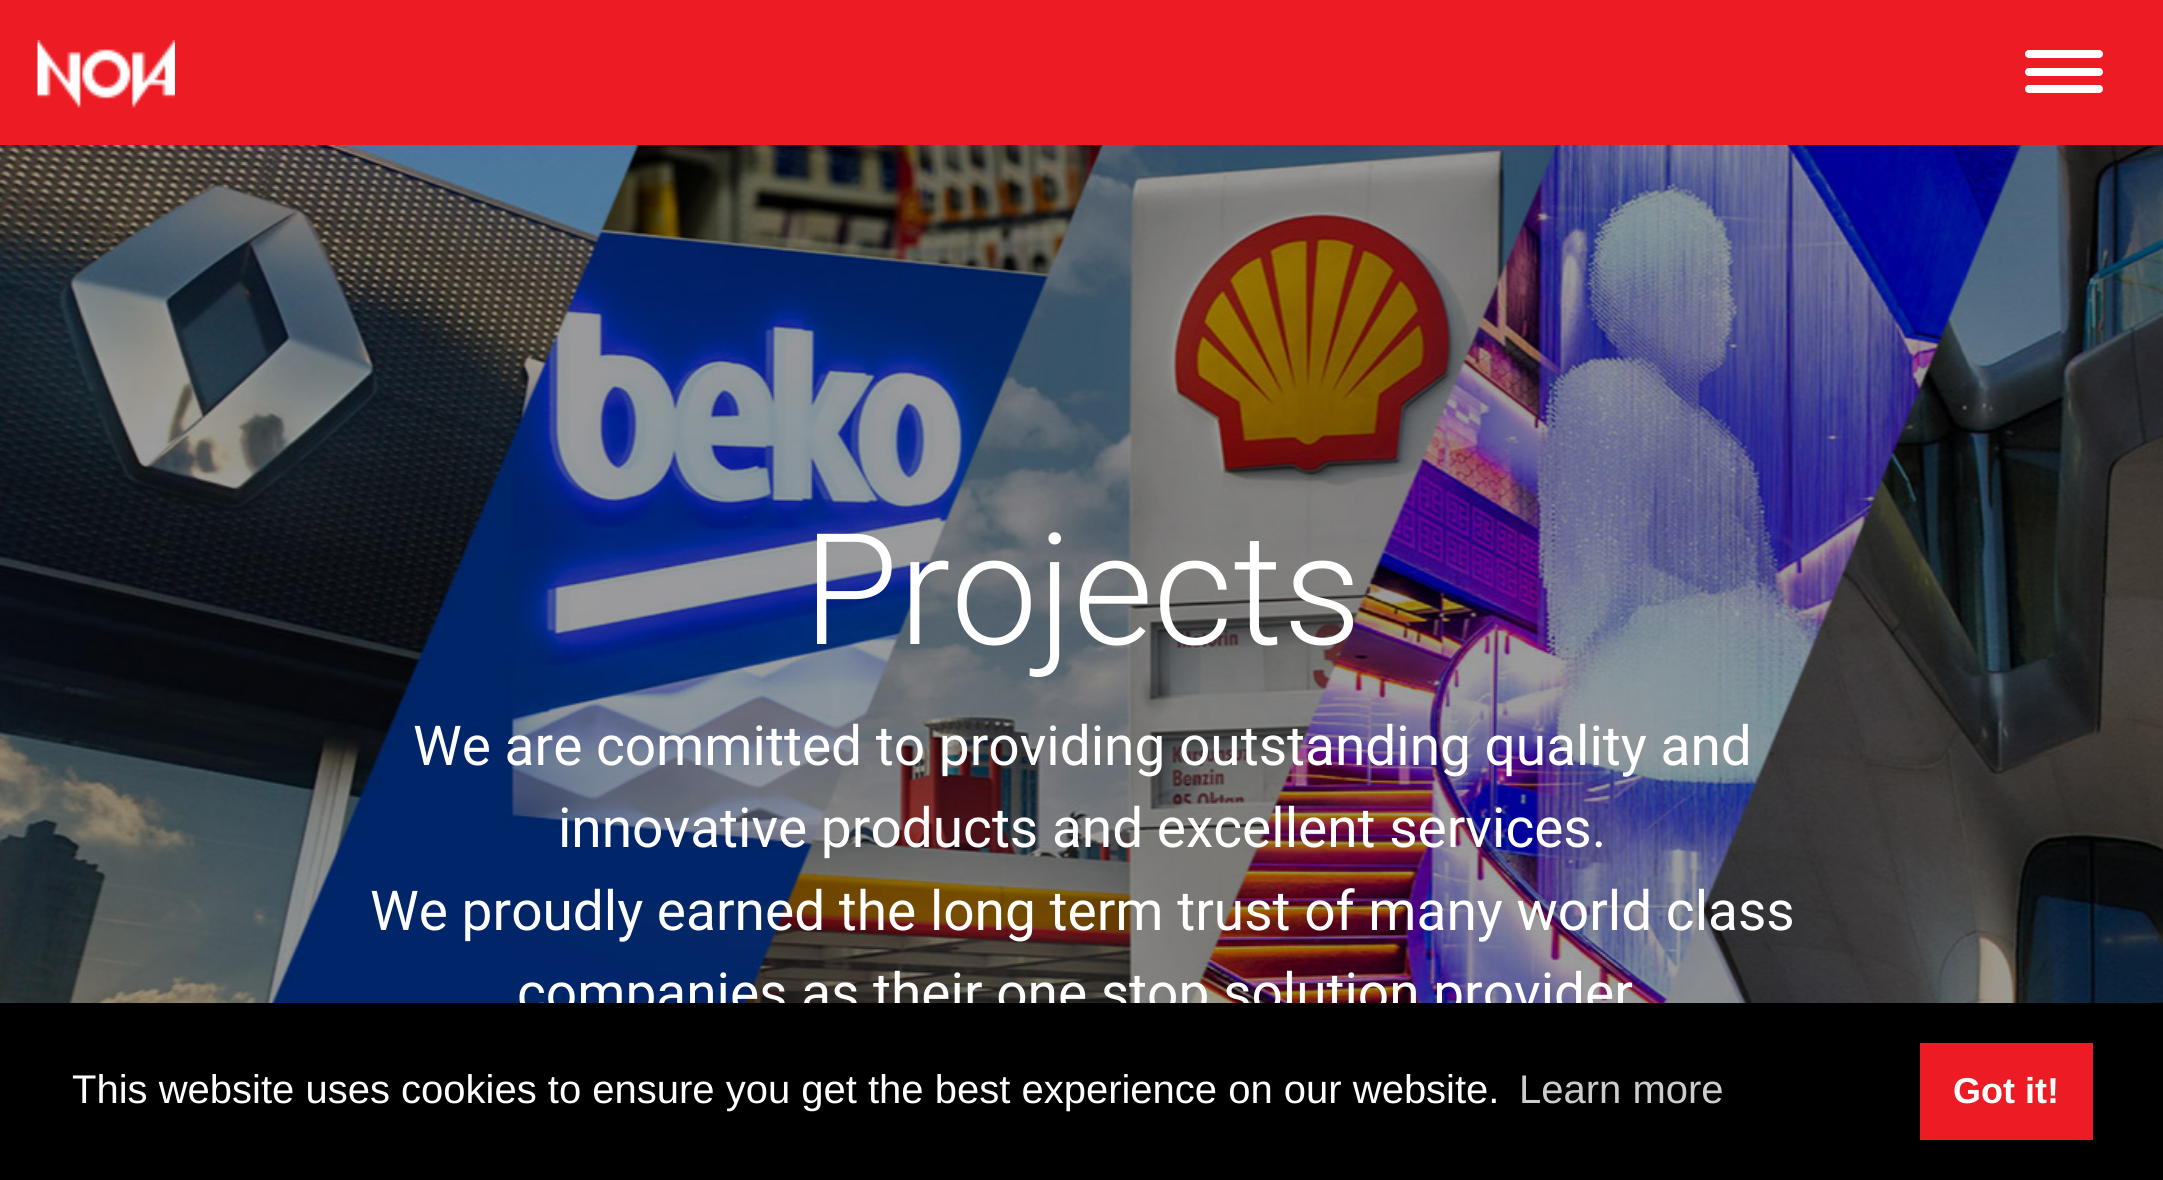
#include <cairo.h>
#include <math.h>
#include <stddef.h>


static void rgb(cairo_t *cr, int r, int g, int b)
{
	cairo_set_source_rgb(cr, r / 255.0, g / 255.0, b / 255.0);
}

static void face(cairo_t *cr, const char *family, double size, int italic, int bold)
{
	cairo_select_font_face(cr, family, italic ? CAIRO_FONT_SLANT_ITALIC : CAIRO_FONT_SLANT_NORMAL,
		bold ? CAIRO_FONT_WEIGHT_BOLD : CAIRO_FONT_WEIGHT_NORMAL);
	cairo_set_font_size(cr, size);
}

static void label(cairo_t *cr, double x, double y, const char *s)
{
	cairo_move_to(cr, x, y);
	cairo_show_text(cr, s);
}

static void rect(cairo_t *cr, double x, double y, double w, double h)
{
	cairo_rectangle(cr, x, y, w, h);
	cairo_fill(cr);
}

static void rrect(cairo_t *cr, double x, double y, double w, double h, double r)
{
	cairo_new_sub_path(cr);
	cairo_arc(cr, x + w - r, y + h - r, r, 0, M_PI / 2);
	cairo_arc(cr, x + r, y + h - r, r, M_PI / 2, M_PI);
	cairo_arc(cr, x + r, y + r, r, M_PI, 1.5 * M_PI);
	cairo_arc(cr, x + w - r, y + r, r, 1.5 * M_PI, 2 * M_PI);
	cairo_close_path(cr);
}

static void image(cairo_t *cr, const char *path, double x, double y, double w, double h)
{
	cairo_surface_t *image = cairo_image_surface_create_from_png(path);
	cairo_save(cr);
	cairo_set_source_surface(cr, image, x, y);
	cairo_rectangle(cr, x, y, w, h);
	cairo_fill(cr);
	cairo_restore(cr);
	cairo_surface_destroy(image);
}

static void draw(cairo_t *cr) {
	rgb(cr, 237, 28, 36);
	cairo_paint(cr);
	image(cr, "image0.png", 37, 40, 138, 68);
	rgb(cr, 255, 255, 255);
	rrect(cr, 2025, 50, 78, 8, 4);
	cairo_fill(cr);
	rrect(cr, 2025, 68, 78, 8, 4);
	cairo_fill(cr);
	rrect(cr, 2025, 85, 78, 8, 4);
	cairo_fill(cr);
	image(cr, "image1.png", 0, 145, 2163, 858);
	face(cr, "Roboto Light", 155, 0, 0);
	label(cr, 803, 644, "Projects");
	face(cr, "Roboto", 55, 0, 0);
	label(cr, 413, 765, "We are committed to providing outstanding quality and");
	label(cr, 558, 847, "innovative products and excellent services.");
	label(cr, 370, 930, "We proudly earned the long term trust of many world class");
	label(cr, 517, 1012, "companies as their one stop solution provider");
	rgb(cr, 0, 0, 0);
	rect(cr, 0, 1003, 2163, 177);
	face(cr, "Liberation Sans", 40, 0, 0);
	rgb(cr, 255, 255, 255);
	label(cr, 72, 1103, "This website uses cookies to ensure you get the best experience on our website.");
	rgb(cr, 204, 204, 204);
	label(cr, 1519, 1103, "Learn more");
	rgb(cr, 237, 28, 36);
	rect(cr, 1920, 1043, 173, 97);
	face(cr, "Liberation Sans", 36, 0, 1);
	rgb(cr, 255, 255, 255);
	label(cr, 1953, 1103, "Got it!");
}

int main(void) {
	cairo_surface_t *surface = cairo_image_surface_create(CAIRO_FORMAT_RGB24, 2163, 1180);
	cairo_t *cr = cairo_create(surface);
	cairo_font_options_t *options = cairo_font_options_create();
	cairo_font_options_set_hint_metrics(options, CAIRO_HINT_METRICS_OFF);
	cairo_font_options_set_hint_style(options, CAIRO_HINT_STYLE_NONE);
	cairo_set_font_options(cr, options);
	cairo_set_miter_limit(cr, 4);
	draw(cr);
	cairo_surface_write_to_png(surface, "render.png");
	cairo_font_options_destroy(options);
	cairo_destroy(cr);
	cairo_surface_destroy(surface);
	return 0;
}
